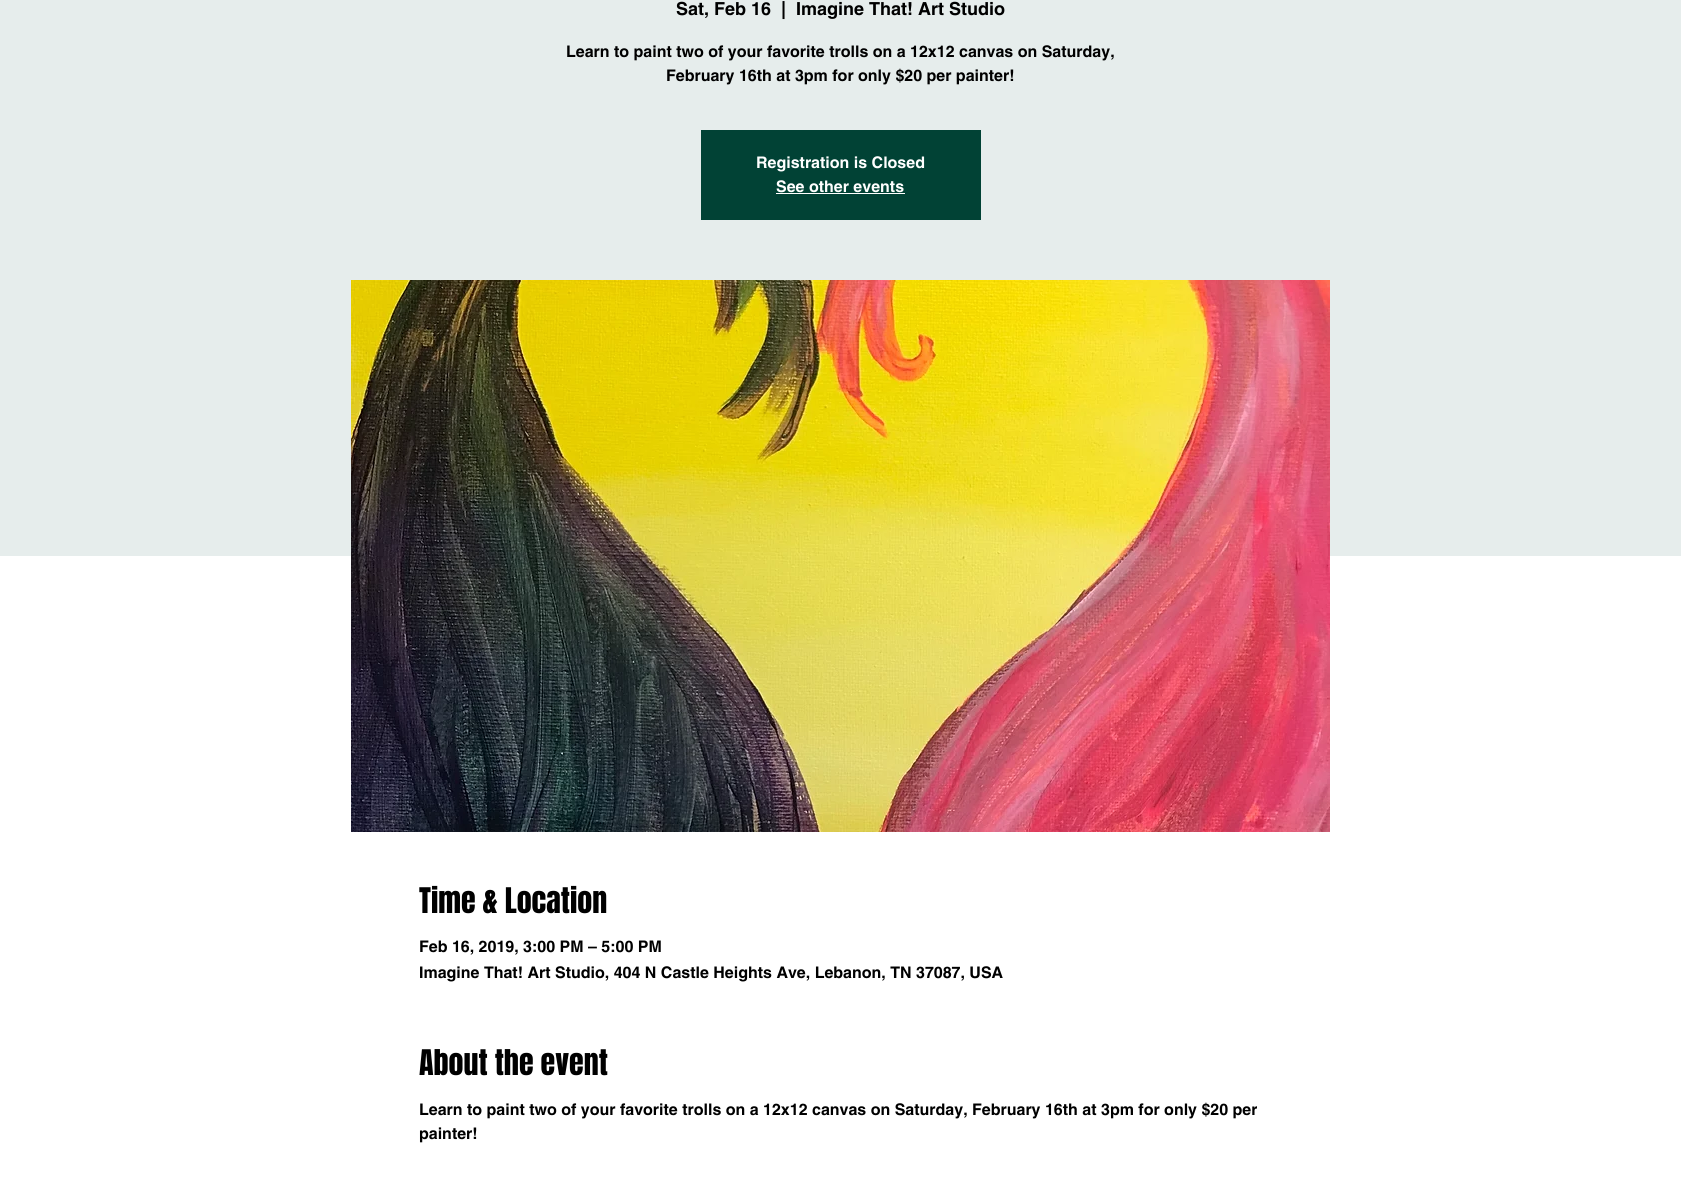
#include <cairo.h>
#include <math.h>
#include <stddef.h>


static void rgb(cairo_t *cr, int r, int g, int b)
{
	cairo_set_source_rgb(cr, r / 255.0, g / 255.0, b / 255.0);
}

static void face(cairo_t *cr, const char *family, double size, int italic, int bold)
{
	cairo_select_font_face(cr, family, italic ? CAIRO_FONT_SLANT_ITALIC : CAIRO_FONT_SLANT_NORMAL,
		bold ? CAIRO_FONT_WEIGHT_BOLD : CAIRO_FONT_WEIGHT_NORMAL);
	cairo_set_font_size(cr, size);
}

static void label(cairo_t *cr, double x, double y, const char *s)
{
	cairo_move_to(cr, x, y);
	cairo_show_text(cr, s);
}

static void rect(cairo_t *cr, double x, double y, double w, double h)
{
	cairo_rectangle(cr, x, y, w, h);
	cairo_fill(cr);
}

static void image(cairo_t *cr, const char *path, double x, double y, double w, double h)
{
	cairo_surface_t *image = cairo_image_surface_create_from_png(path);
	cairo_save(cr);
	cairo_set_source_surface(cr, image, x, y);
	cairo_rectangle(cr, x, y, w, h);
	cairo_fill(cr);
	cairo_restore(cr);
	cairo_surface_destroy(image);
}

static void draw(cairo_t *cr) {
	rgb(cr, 255, 255, 255);
	cairo_paint(cr);
	rgb(cr, 230, 237, 236);
	rect(cr, 0, 0, 1681, 556);
	face(cr, "helvetica", 18, 0, 1);
	rgb(cr, 0, 0, 0);
	label(cr, 676, 15, "Sat, Feb 16");
	label(cr, 781, 15, "|");
	label(cr, 796, 15, "Imagine That! Art Studio");
	face(cr, "helvetica", 16, 0, 1);
	label(cr, 566, 57, "Learn to paint two of your favorite trolls on a 12x12 canvas on Saturday,");
	label(cr, 666, 81, "February 16th at 3pm for only $20 per painter!");
	rgb(cr, 1, 66, 53);
	rect(cr, 701, 130, 280, 90);
	rgb(cr, 255, 255, 255);
	label(cr, 756, 168, "Registration is Closed");
	label(cr, 776, 192, "See other events");
	rect(cr, 776, 193, 129, 1);
	image(cr, "image0.png", 351, 280, 979, 552);
	face(cr, "Anton", 30, 0, 0);
	rgb(cr, 0, 0, 0);
	label(cr, 419, 913, "Time & Location");
	face(cr, "helvetica", 16, 0, 1);
	label(cr, 419, 952, "Feb 16, 2019, 3:00 PM – 5:00 PM");
	label(cr, 419, 978, "Imagine That! Art Studio, 404 N Castle Heights Ave, Lebanon, TN 37087, USA");
	face(cr, "Anton", 30, 0, 0);
	label(cr, 419, 1075, "About the event");
	face(cr, "helvetica", 16, 0, 1);
	label(cr, 419, 1115, "Learn to paint two of your favorite trolls on a 12x12 canvas on Saturday, February 16th at 3pm for only $20 per");
	label(cr, 419, 1139, "painter!");
}

int main(void) {
	cairo_surface_t *surface = cairo_image_surface_create(CAIRO_FORMAT_RGB24, 1681, 1193);
	cairo_t *cr = cairo_create(surface);
	cairo_font_options_t *options = cairo_font_options_create();
	cairo_font_options_set_hint_metrics(options, CAIRO_HINT_METRICS_OFF);
	cairo_font_options_set_hint_style(options, CAIRO_HINT_STYLE_NONE);
	cairo_set_font_options(cr, options);
	cairo_set_miter_limit(cr, 4);
	draw(cr);
	cairo_surface_write_to_png(surface, "render.png");
	cairo_font_options_destroy(options);
	cairo_destroy(cr);
	cairo_surface_destroy(surface);
	return 0;
}
